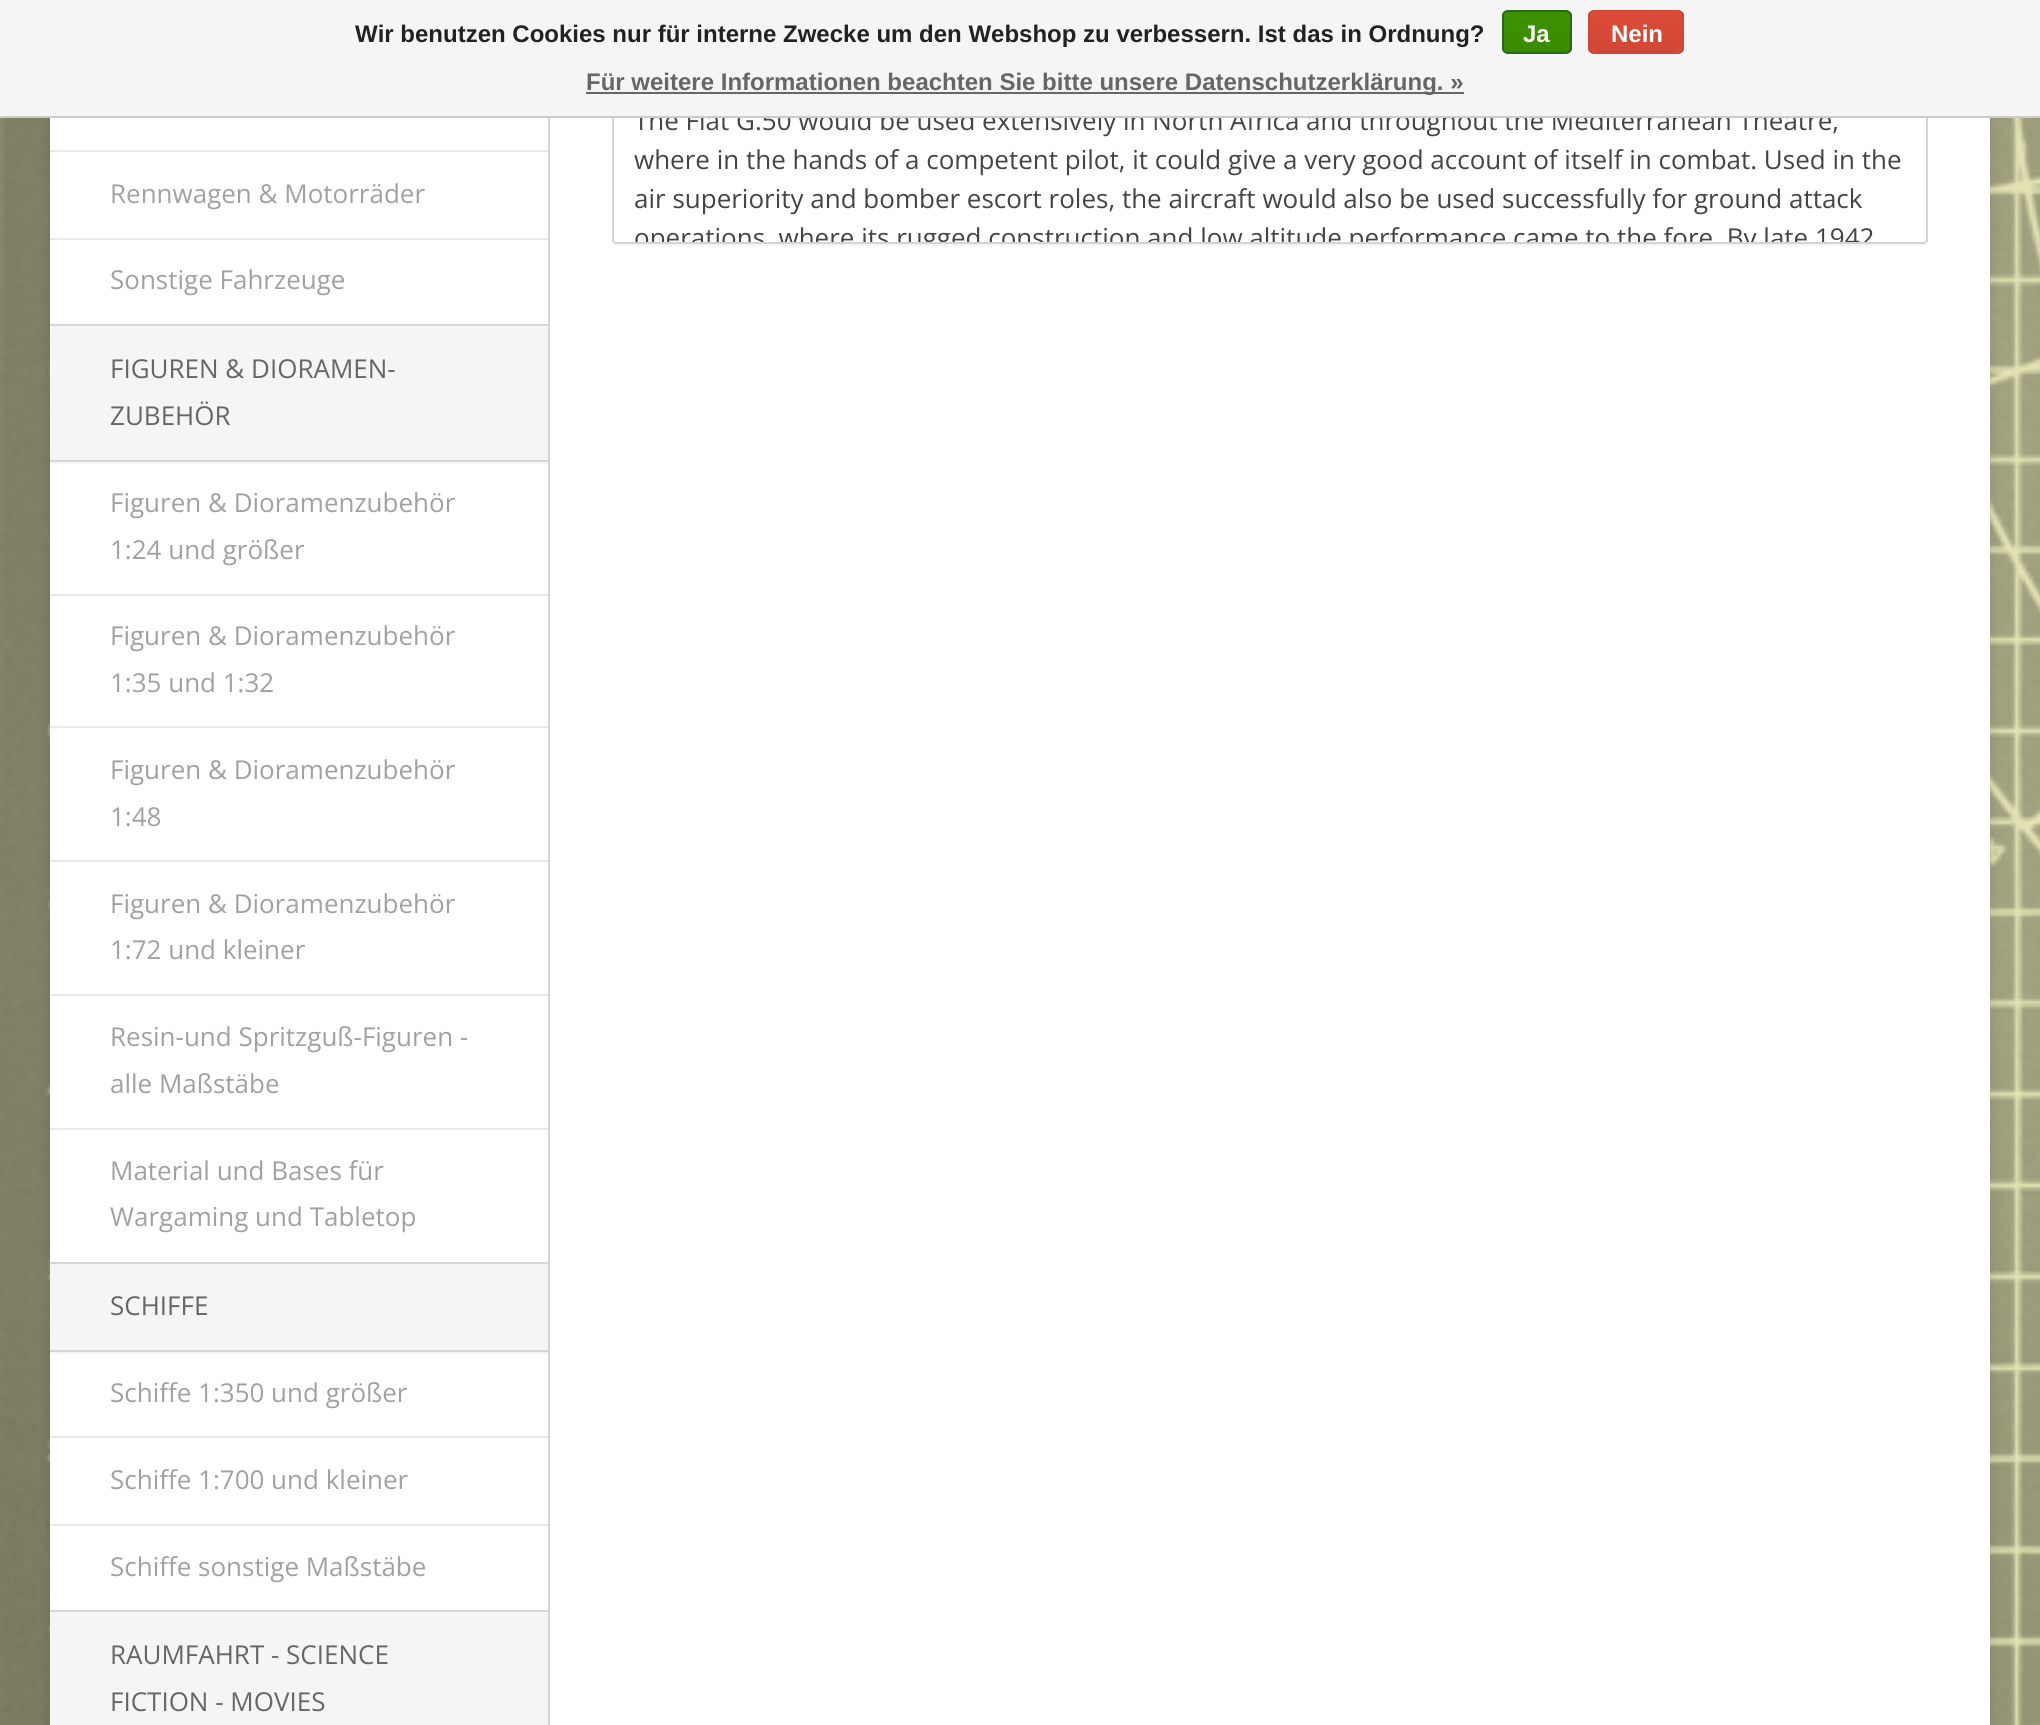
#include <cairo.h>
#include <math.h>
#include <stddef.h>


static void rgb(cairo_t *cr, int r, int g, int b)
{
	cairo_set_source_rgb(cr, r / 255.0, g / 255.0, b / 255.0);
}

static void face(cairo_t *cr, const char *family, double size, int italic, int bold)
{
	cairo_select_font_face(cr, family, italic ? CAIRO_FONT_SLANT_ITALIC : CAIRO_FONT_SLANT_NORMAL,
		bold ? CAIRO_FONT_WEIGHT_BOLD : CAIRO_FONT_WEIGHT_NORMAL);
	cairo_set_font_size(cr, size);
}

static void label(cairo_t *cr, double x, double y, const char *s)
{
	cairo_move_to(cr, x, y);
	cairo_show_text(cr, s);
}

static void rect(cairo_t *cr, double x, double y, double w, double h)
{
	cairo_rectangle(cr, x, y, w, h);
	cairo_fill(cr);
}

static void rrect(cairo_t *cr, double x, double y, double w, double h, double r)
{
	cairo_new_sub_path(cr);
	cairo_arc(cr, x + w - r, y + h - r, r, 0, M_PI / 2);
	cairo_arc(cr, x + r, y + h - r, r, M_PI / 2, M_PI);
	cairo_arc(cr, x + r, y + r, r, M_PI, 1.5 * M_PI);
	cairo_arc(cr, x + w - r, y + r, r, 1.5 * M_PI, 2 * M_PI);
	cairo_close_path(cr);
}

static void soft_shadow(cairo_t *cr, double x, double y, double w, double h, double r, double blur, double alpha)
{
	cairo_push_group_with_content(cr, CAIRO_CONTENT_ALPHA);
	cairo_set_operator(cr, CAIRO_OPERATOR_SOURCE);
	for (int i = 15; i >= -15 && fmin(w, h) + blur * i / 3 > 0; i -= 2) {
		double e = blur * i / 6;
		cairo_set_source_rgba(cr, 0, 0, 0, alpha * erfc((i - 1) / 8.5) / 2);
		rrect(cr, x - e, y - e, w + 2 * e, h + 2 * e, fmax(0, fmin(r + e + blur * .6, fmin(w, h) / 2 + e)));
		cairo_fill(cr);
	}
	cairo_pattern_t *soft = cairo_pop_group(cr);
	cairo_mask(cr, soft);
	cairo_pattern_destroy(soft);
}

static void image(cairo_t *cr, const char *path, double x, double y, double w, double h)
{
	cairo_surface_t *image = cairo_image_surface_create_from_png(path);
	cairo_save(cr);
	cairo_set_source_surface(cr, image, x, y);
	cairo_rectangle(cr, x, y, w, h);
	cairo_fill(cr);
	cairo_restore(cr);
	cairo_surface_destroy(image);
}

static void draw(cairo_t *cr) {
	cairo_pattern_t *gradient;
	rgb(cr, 255, 255, 255);
	cairo_paint(cr);
	image(cr, "image0.png", 0, 118, 2040, 1607);
	rgb(cr, 0, 0, 0);
	soft_shadow(cr, 50, -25, 1940, 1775, 4, 7, 0.13);
	rgb(cr, 255, 255, 255);
	rect(cr, 50, 118, 1940, 1607);
	cairo_new_path(cr);
	cairo_move_to(cr, 613, -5);
	cairo_line_to(cr, 1924, -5);
	cairo_curve_to(cr, 1925.5, -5, 1927, -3.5, 1927, -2);
	cairo_line_to(cr, 1927, 240);
	cairo_curve_to(cr, 1927, 241.5, 1925.5, 243, 1924, 243);
	cairo_line_to(cr, 616, 243);
	cairo_curve_to(cr, 614.5, 243, 613, 241.5, 613, 240);
	cairo_close_path(cr);
	rgb(cr, 212, 212, 212);
	cairo_stroke(cr);
	face(cr, "Open Sans", 26, 0, 0);
	rgb(cr, 68, 68, 68);
	label(cr, 634, 130, "The Fiat G.50 would be used extensively in North Africa and throughout the Mediterranean Theatre,");
	rgb(cr, 245, 245, 245);
	rect(cr, 0, 0, 2040, 116);
	rgb(cr, 204, 204, 204);
	rect(cr, 0, 116, 2040, 2);
	face(cr, "Liberation Sans", 24, 0, 1);
	rgb(cr, 34, 34, 34);
	label(cr, 355, 42, "Wir benutzen Cookies nur für interne Zwecke um den Webshop zu verbessern. Ist das in Ordnung?");
	cairo_save(cr);
	rrect(cr, 1502, 10, 70, 44, 6);
	cairo_clip(cr);
	gradient = cairo_pattern_create_linear(1537, 12, 1537, 52);
	cairo_pattern_add_color_stop_rgba(gradient, 0, 0.235, 0.576, 0, 1);
	cairo_pattern_add_color_stop_rgba(gradient, 1, 0.224, 0.541, 0, 1);
	cairo_set_source(cr, gradient);
	cairo_pattern_destroy(gradient);
	rect(cr, 1502, 12, 70, 40);
	cairo_restore(cr);
	rrect(cr, 1503, 11, 68, 42, 5);
	rgb(cr, 41, 105, 29);
	cairo_stroke(cr);
	rgb(cr, 255, 255, 255);
	label(cr, 1523, 42, "Ja");
	cairo_save(cr);
	rrect(cr, 1588, 10, 96, 44, 6);
	cairo_clip(cr);
	gradient = cairo_pattern_create_linear(1636, 12, 1636, 52);
	cairo_pattern_add_color_stop_rgba(gradient, 0, 0.863, 0.29, 0.22, 1);
	cairo_pattern_add_color_stop_rgba(gradient, 1, 0.82, 0.282, 0.212, 1);
	cairo_set_source(cr, gradient);
	cairo_pattern_destroy(gradient);
	rect(cr, 1588, 12, 96, 40);
	cairo_restore(cr);
	rrect(cr, 1589, 11, 94, 42, 5);
	rgb(cr, 209, 72, 54);
	cairo_stroke(cr);
	rgb(cr, 255, 255, 255);
	label(cr, 1611, 42, "Nein");
	rgb(cr, 102, 102, 102);
	rect(cr, 586, 92, 878, 2);
	label(cr, 586, 90, "Für weitere Informationen beachten Sie bitte unsere Datenschutzerklärung. »");
	rgb(cr, 212, 212, 212);
	rect(cr, 548, 118, 2, 1607);
	rgb(cr, 233, 233, 233);
	rect(cr, 50, 150, 498, 2);
	rect(cr, 50, 238, 498, 2);
	face(cr, "Open Sans", 26, 0, 0);
	rgb(cr, 161, 161, 161);
	label(cr, 110, 203, "Rennwagen & Motorräder");
	label(cr, 110, 289, "Sonstige Fahrzeuge");
	rgb(cr, 245, 245, 245);
	rect(cr, 50, 462, 498, 2);
	rect(cr, 50, 326, 498, 134);
	rgb(cr, 215, 215, 215);
	rect(cr, 50, 324, 498, 2);
	rect(cr, 50, 460, 498, 2);
	rgb(cr, 102, 102, 102);
	label(cr, 110, 378, "FIGUREN & DIORAMEN-");
	label(cr, 110, 425, "ZUBEHÖR");
	rgb(cr, 233, 233, 233);
	rect(cr, 50, 594, 498, 2);
	rgb(cr, 161, 161, 161);
	label(cr, 110, 512, "Figuren & Dioramenzubehör");
	label(cr, 110, 559, "1:24 und größer");
	rgb(cr, 233, 233, 233);
	rect(cr, 50, 726, 498, 2);
	rgb(cr, 161, 161, 161);
	label(cr, 110, 645, "Figuren & Dioramenzubehör");
	label(cr, 110, 692, "1:35 und 1:32");
	rgb(cr, 233, 233, 233);
	rect(cr, 50, 860, 498, 2);
	rgb(cr, 161, 161, 161);
	label(cr, 110, 779, "Figuren & Dioramenzubehör");
	label(cr, 110, 826, "1:48");
	rgb(cr, 233, 233, 233);
	rect(cr, 50, 994, 498, 2);
	rgb(cr, 161, 161, 161);
	label(cr, 110, 913, "Figuren & Dioramenzubehör");
	label(cr, 110, 959, "1:72 und kleiner");
	rgb(cr, 233, 233, 233);
	rect(cr, 50, 1128, 498, 2);
	rgb(cr, 161, 161, 161);
	label(cr, 110, 1046, "Resin-und Spritzguß-Figuren -");
	label(cr, 110, 1093, "alle Maßstäbe");
	label(cr, 110, 1180, "Material und Bases für");
	label(cr, 110, 1226, "Wargaming und Tabletop");
	rgb(cr, 245, 245, 245);
	rect(cr, 50, 1352, 498, 2);
	rect(cr, 50, 1264, 498, 86);
	rgb(cr, 215, 215, 215);
	rect(cr, 50, 1262, 498, 2);
	rect(cr, 50, 1350, 498, 2);
	rgb(cr, 102, 102, 102);
	label(cr, 110, 1315, "SCHIFFE");
	rgb(cr, 233, 233, 233);
	rect(cr, 50, 1436, 498, 2);
	rgb(cr, 161, 161, 161);
	label(cr, 110, 1402, "Schiffe 1:350 und größer");
	rgb(cr, 233, 233, 233);
	rect(cr, 50, 1524, 498, 2);
	rgb(cr, 161, 161, 161);
	label(cr, 110, 1489, "Schiffe 1:700 und kleiner");
	label(cr, 110, 1576, "Schiffe sonstige Maßstäbe");
	rgb(cr, 245, 245, 245);
	rect(cr, 50, 1612, 498, 113);
	rgb(cr, 215, 215, 215);
	rect(cr, 50, 1610, 498, 2);
	rgb(cr, 102, 102, 102);
	label(cr, 110, 1664, "RAUMFAHRT - SCIENCE");
	label(cr, 110, 1711, "FICTION - MOVIES");
	rgb(cr, 245, 245, 245);
	rect(cr, 612, 244, 1316, 2);
	rgb(cr, 68, 68, 68);
	label(cr, 634, 169, "where in the hands of a competent pilot, it could give a very good account of itself in combat. Used in the");
	label(cr, 634, 208, "air superiority and bomber escort roles, the aircraft would also be used successfully for ground attack");
	cairo_save(cr);
	cairo_rectangle(cr, 614, 0, 1312, 242);
	cairo_clip(cr);
	label(cr, 634, 247, "operations, where its rugged construction and low altitude performance came to the fore. By late 1942");
	cairo_restore(cr);
}

int main(void) {
	cairo_surface_t *surface = cairo_image_surface_create(CAIRO_FORMAT_RGB24, 2040, 1725);
	cairo_t *cr = cairo_create(surface);
	cairo_font_options_t *options = cairo_font_options_create();
	cairo_font_options_set_hint_metrics(options, CAIRO_HINT_METRICS_OFF);
	cairo_font_options_set_hint_style(options, CAIRO_HINT_STYLE_NONE);
	cairo_set_font_options(cr, options);
	cairo_set_miter_limit(cr, 4);
	draw(cr);
	cairo_surface_write_to_png(surface, "render.png");
	cairo_font_options_destroy(options);
	cairo_destroy(cr);
	cairo_surface_destroy(surface);
	return 0;
}
